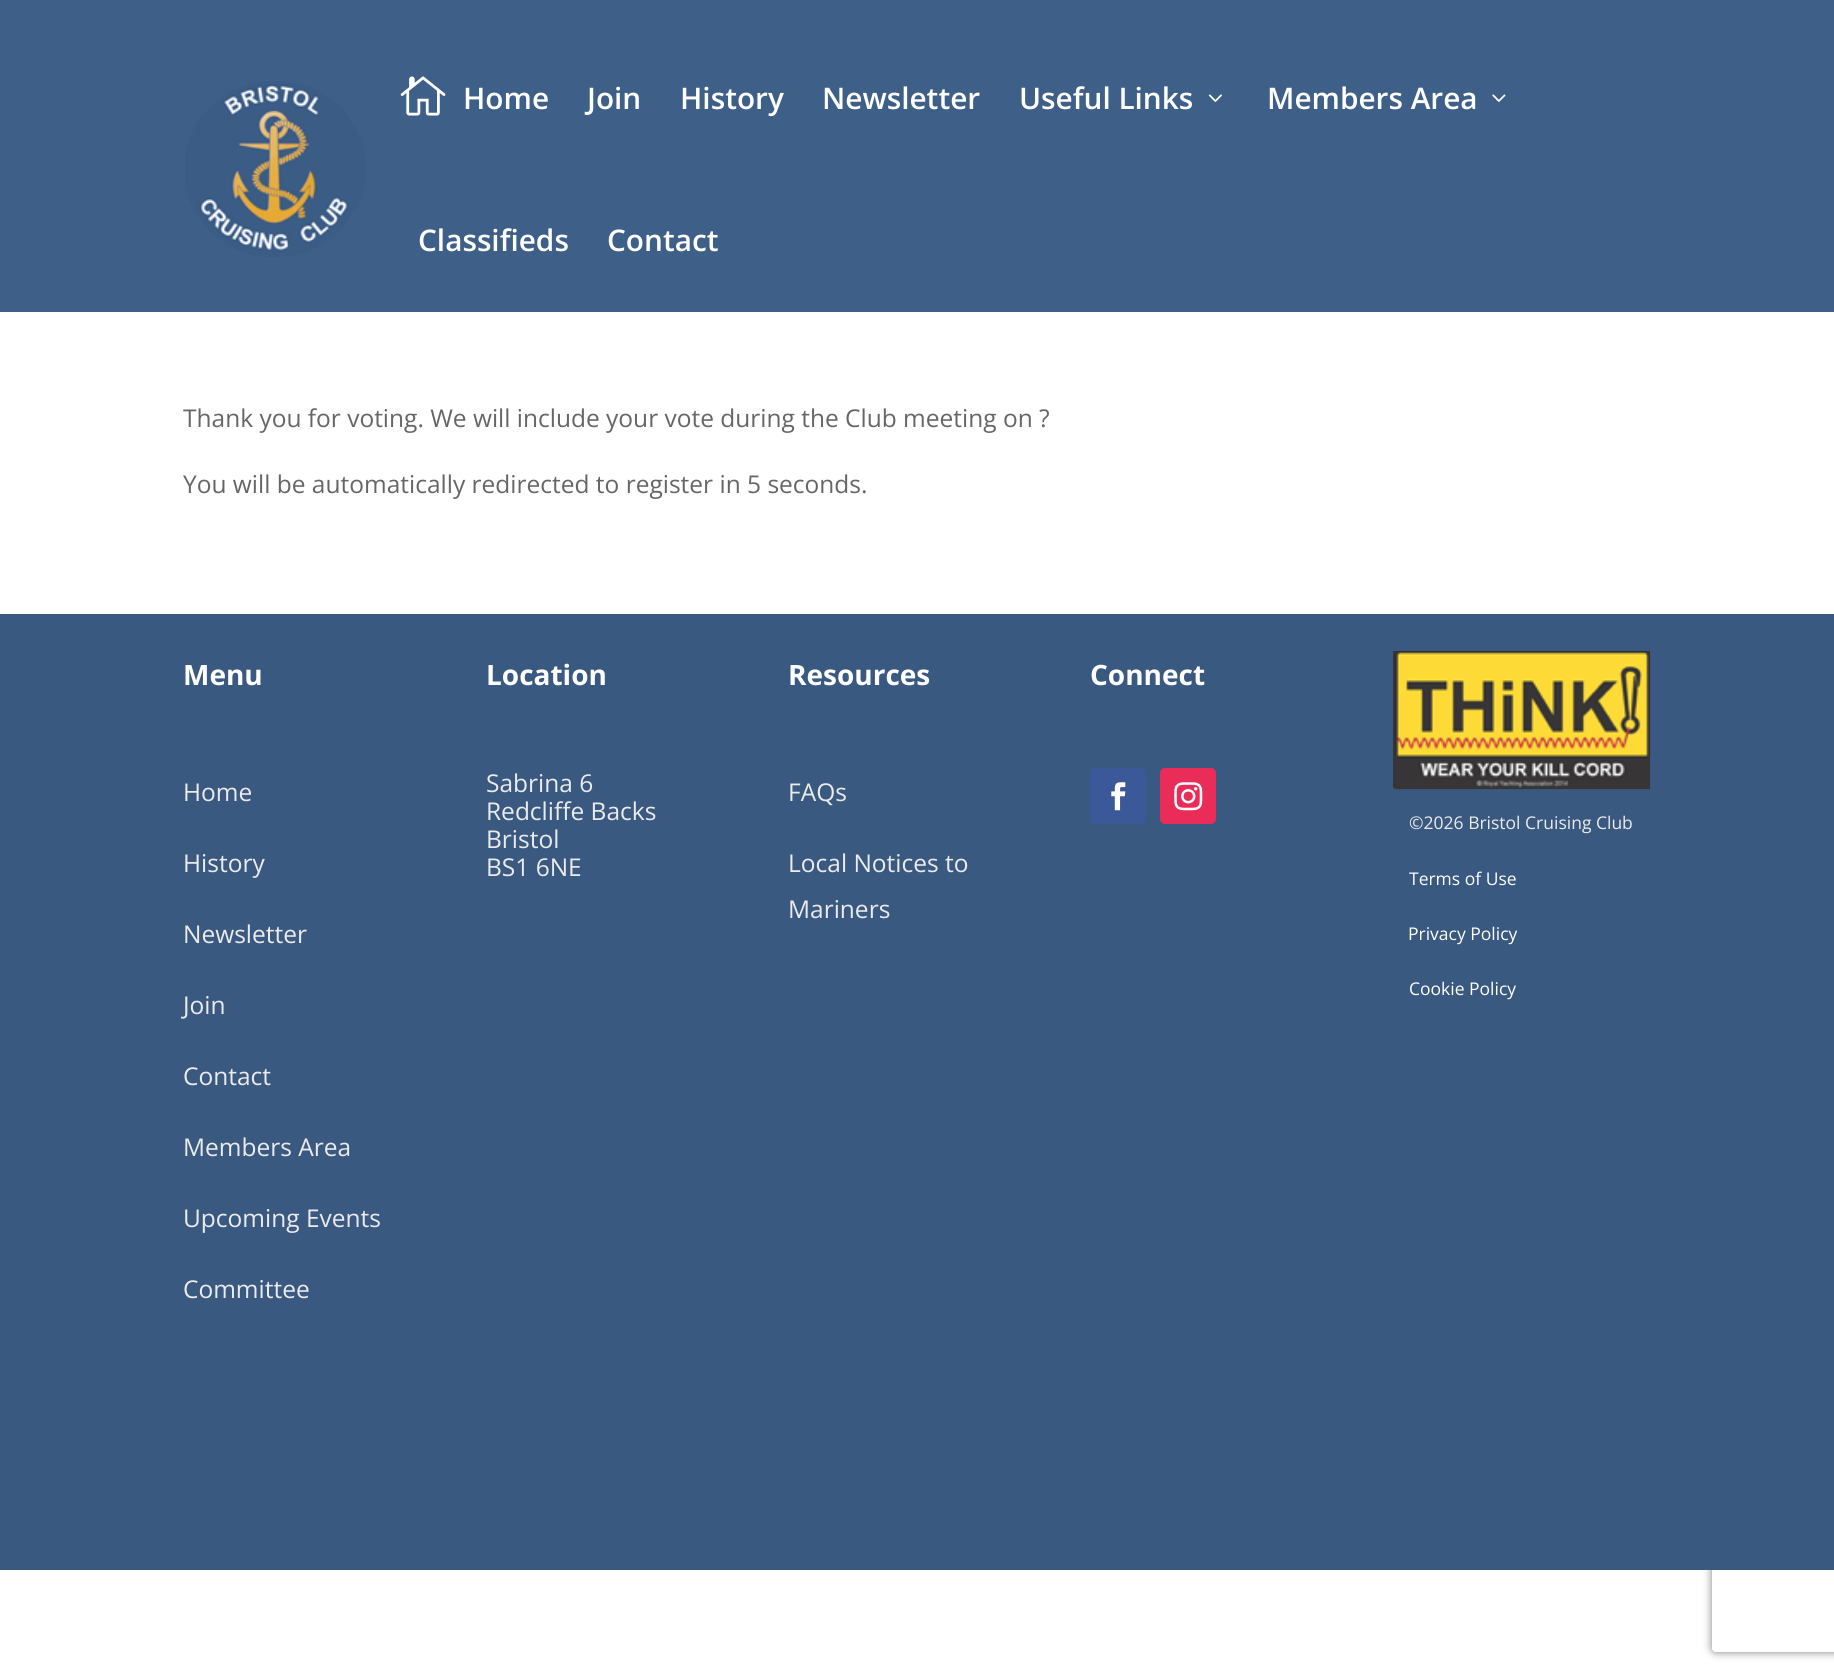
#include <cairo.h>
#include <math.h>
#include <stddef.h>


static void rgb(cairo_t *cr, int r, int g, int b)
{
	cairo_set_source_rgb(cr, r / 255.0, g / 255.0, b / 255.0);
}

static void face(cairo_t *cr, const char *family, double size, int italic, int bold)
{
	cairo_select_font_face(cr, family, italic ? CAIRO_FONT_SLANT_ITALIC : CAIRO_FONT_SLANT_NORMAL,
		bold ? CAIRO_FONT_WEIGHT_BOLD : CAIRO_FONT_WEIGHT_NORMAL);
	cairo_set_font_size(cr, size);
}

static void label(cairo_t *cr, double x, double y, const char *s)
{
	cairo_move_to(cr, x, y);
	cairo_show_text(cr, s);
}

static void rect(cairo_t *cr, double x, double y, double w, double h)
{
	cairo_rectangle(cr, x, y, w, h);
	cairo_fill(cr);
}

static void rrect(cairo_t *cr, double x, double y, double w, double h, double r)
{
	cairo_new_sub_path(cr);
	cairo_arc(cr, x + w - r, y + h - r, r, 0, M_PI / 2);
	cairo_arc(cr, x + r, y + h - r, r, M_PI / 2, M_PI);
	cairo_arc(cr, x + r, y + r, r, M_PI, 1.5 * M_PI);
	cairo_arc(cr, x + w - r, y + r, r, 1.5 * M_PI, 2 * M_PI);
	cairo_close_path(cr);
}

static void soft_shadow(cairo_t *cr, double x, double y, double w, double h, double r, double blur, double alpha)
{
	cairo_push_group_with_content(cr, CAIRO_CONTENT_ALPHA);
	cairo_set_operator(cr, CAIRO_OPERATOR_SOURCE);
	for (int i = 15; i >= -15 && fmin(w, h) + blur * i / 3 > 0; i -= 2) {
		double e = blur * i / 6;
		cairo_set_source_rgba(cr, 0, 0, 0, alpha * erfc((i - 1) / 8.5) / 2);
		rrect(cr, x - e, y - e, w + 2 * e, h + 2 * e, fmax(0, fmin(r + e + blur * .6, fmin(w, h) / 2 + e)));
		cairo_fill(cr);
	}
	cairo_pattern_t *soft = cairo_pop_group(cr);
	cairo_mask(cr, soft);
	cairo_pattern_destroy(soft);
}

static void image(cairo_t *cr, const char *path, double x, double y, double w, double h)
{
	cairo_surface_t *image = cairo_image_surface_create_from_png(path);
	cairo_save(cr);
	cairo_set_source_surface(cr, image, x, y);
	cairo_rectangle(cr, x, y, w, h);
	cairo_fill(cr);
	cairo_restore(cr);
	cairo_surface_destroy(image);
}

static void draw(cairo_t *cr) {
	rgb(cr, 255, 255, 255);
	cairo_paint(cr);
	rgb(cr, 62, 96, 136);
	rect(cr, 0, 0, 1834, 312);
	image(cr, "image0.png", 185, 81, 180, 176);
	image(cr, "image1.png", 400, 76, 46, 40);
	face(cr, "Open Sans SemiBold", 29.75, 0, 0);
	rgb(cr, 255, 255, 255);
	label(cr, 463, 109, "Home");
	label(cr, 587, 109, "Join");
	label(cr, 680, 109, "History");
	label(cr, 822, 109, "Newsletter");
	label(cr, 1019, 109, "Useful Links");
	image(cr, "image2.png", 1208, 94, 14, 8);
	label(cr, 1267, 109, "Members Area");
	image(cr, "image3.png", 1492, 94, 14, 8);
	label(cr, 418, 251, "Classifieds");
	label(cr, 607, 251, "Contact");
	face(cr, "Open Sans", 24.5, 0, 0);
	rgb(cr, 102, 102, 102);
	label(cr, 183, 427, "Thank you for voting. We will include your vote during the Club meeting on ?");
	label(cr, 183, 493, "You will be automatically redirected to register in 5 seconds.");
	cairo_save(cr);
	cairo_set_fill_rule(cr, CAIRO_FILL_RULE_EVEN_ODD);
	cairo_new_path(cr);
	cairo_move_to(cr, 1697, 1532);
	cairo_line_to(cr, 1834, 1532);
	cairo_line_to(cr, 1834, 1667);
	cairo_line_to(cr, 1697, 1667);
	cairo_close_path(cr);
	cairo_move_to(cr, 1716, 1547);
	cairo_line_to(cr, 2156, 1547);
	cairo_curve_to(cr, 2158, 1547, 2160, 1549, 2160, 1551);
	cairo_line_to(cr, 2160, 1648);
	cairo_curve_to(cr, 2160, 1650, 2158, 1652, 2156, 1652);
	cairo_line_to(cr, 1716, 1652);
	cairo_curve_to(cr, 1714, 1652, 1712, 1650, 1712, 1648);
	cairo_line_to(cr, 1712, 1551);
	cairo_curve_to(cr, 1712, 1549, 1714, 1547, 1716, 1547);
	cairo_close_path(cr);
	cairo_clip(cr);
	rgb(cr, 128, 128, 128);
	soft_shadow(cr, 1712, 1547, 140, 105, 4, 4.5, 1);
	cairo_restore(cr);
	rgb(cr, 57, 89, 129);
	rect(cr, 0, 614, 1834, 956);
	face(cr, "Open Sans", 28, 0, 1);
	rgb(cr, 255, 255, 255);
	label(cr, 183, 685, "Menu");
	face(cr, "Open Sans", 24.5, 0, 0);
	rgb(cr, 235, 235, 235);
	label(cr, 183, 801, "Home");
	label(cr, 183, 872, "History");
	label(cr, 183, 943, "Newsletter");
	label(cr, 183, 1014, "Join");
	label(cr, 183, 1085, "Contact");
	label(cr, 183, 1156, "Members Area");
	label(cr, 183, 1227, "Upcoming Events");
	label(cr, 183, 1298, "Committee");
	face(cr, "Open Sans", 28, 0, 1);
	rgb(cr, 255, 255, 255);
	label(cr, 486, 685, "Location");
	face(cr, "Open Sans", 24.5, 0, 0);
	rgb(cr, 235, 235, 235);
	label(cr, 486, 792, "Sabrina 6");
	label(cr, 486, 820, "Redcliffe Backs");
	label(cr, 486, 848, "Bristol");
	label(cr, 486, 876, "BS1 6NE");
	face(cr, "Open Sans", 28, 0, 1);
	rgb(cr, 255, 255, 255);
	label(cr, 788, 685, "Resources");
	face(cr, "Open Sans", 24.5, 0, 0);
	rgb(cr, 235, 235, 235);
	label(cr, 788, 801, "FAQs");
	label(cr, 788, 872, "Local Notices to");
	label(cr, 788, 918, "Mariners");
	face(cr, "Open Sans", 28, 0, 1);
	rgb(cr, 255, 255, 255);
	label(cr, 1090, 685, "Connect");
	rgb(cr, 59, 89, 152);
	rrect(cr, 1090, 768, 56, 56, 5);
	cairo_fill(cr);
	image(cr, "image4.png", 1111, 782, 15, 29);
	rgb(cr, 234, 44, 89);
	rrect(cr, 1160, 768, 56, 56, 5);
	cairo_fill(cr);
	image(cr, "image5.png", 1174, 782, 29, 29);
	image(cr, "image6.png", 1393, 651, 258, 139);
	face(cr, "Open Sans", 17.5, 0, 0);
	rgb(cr, 235, 235, 235);
	label(cr, 1409, 829, "©2026 Bristol Cruising Club");
	rgb(cr, 255, 255, 255);
	label(cr, 1409, 885, "Terms of Use");
	label(cr, 1408, 940, "Privacy Policy");
	label(cr, 1409, 995, "Cookie Policy");
}

int main(void) {
	cairo_surface_t *surface = cairo_image_surface_create(CAIRO_FORMAT_RGB24, 1834, 1676);
	cairo_t *cr = cairo_create(surface);
	cairo_font_options_t *options = cairo_font_options_create();
	cairo_font_options_set_hint_metrics(options, CAIRO_HINT_METRICS_OFF);
	cairo_font_options_set_hint_style(options, CAIRO_HINT_STYLE_NONE);
	cairo_set_font_options(cr, options);
	cairo_set_miter_limit(cr, 4);
	draw(cr);
	cairo_surface_write_to_png(surface, "render.png");
	cairo_font_options_destroy(options);
	cairo_destroy(cr);
	cairo_surface_destroy(surface);
	return 0;
}
